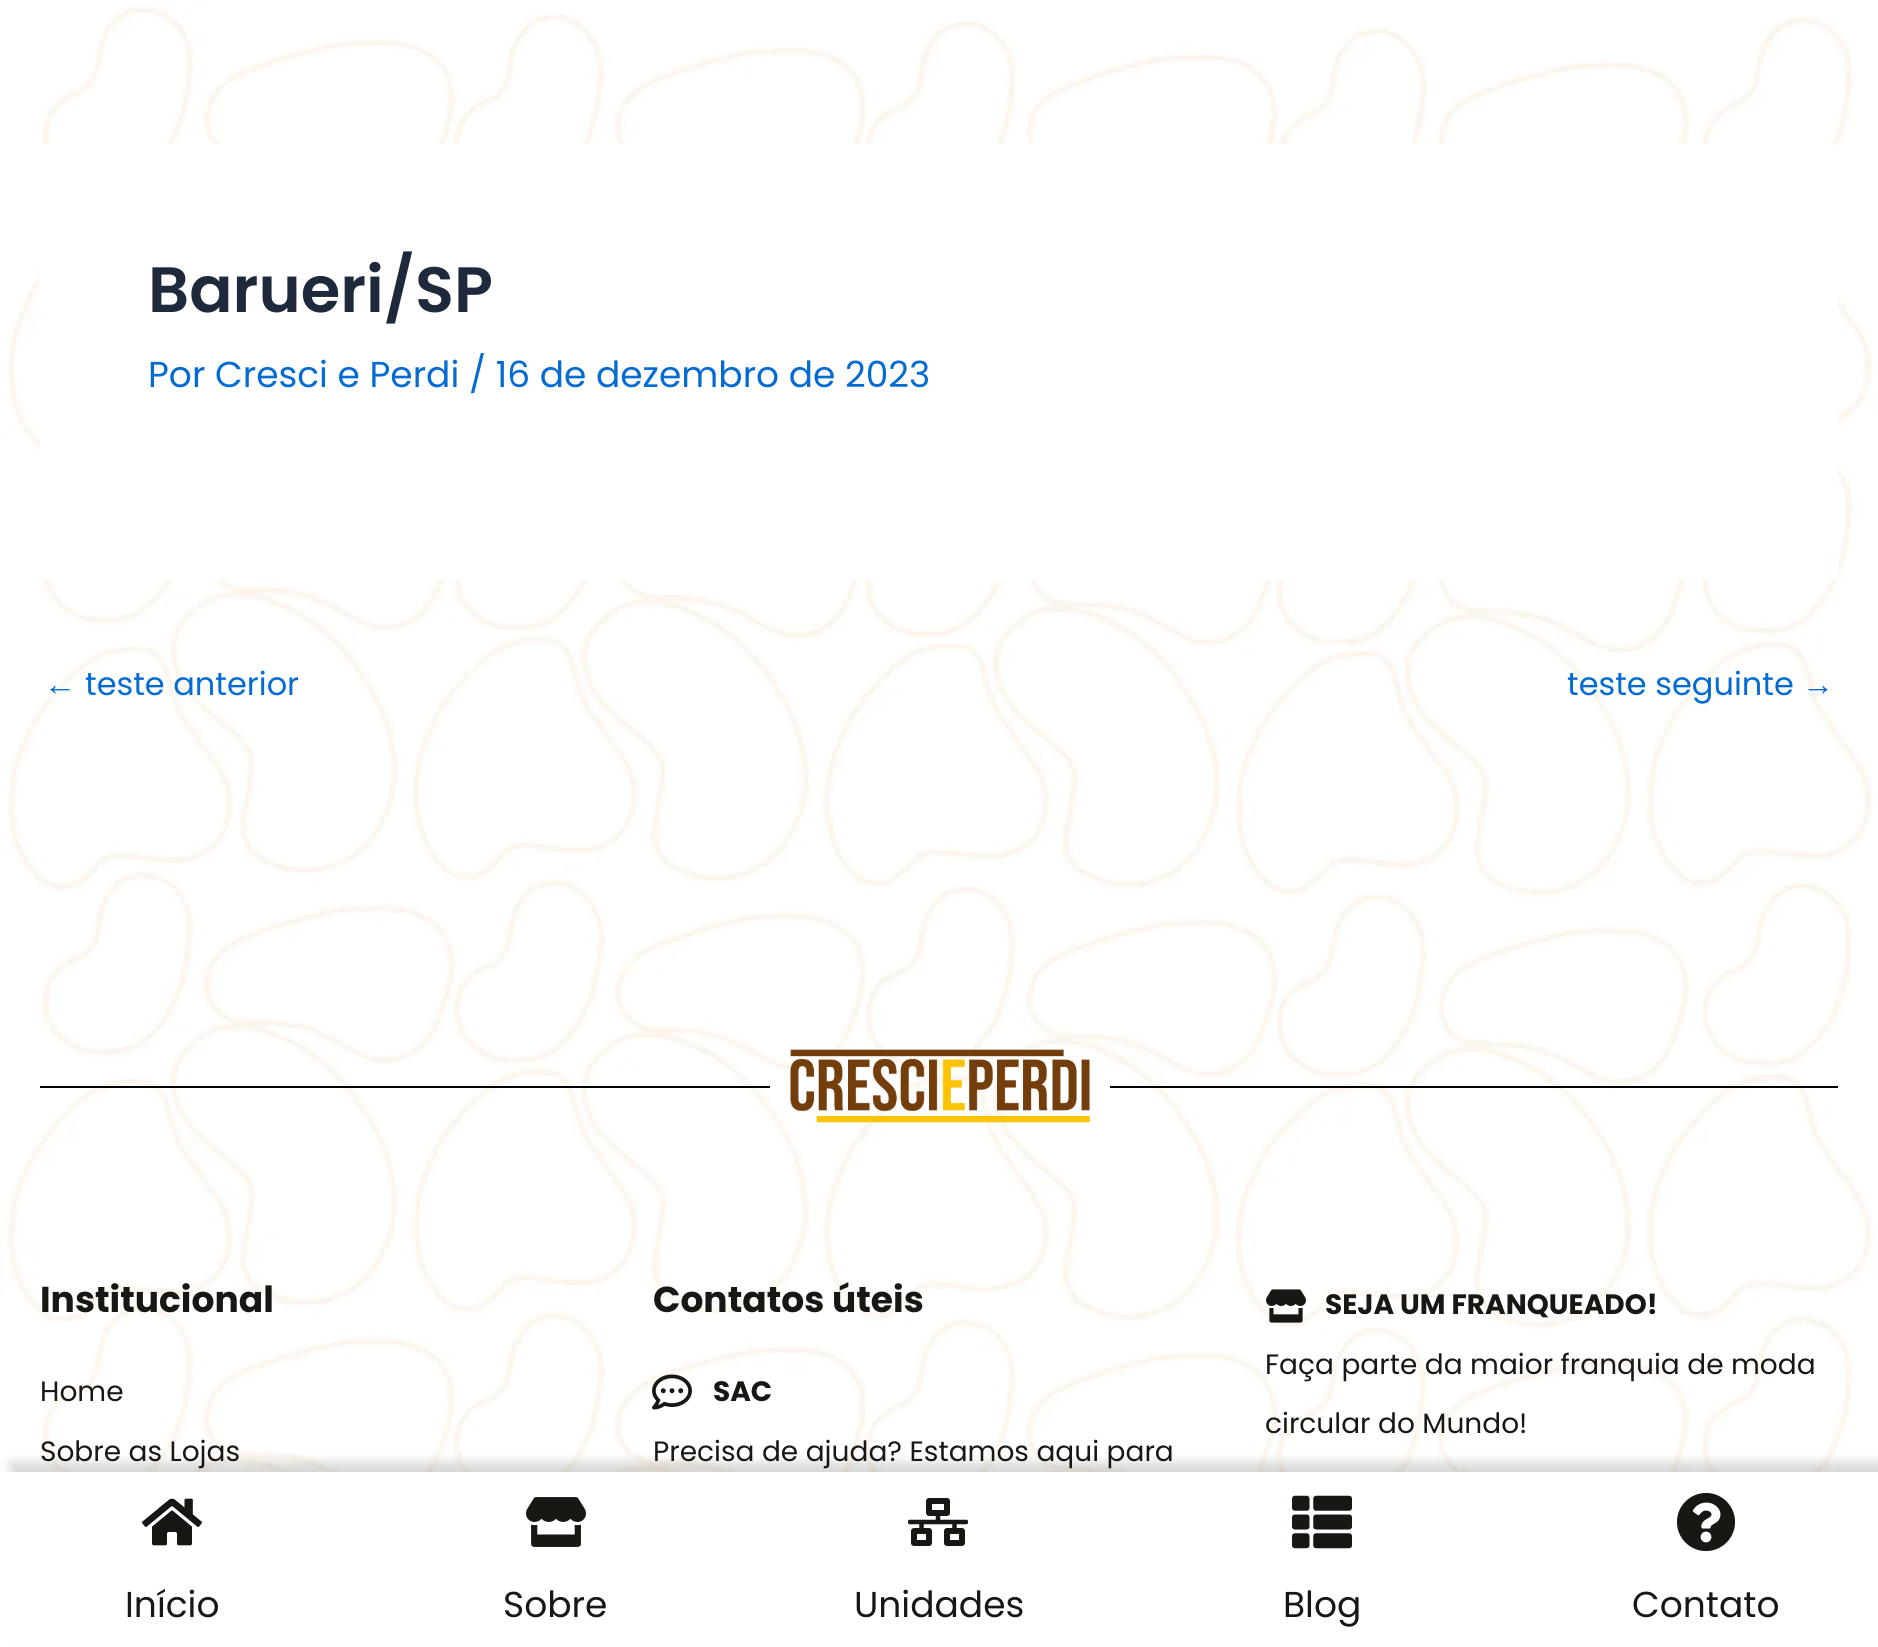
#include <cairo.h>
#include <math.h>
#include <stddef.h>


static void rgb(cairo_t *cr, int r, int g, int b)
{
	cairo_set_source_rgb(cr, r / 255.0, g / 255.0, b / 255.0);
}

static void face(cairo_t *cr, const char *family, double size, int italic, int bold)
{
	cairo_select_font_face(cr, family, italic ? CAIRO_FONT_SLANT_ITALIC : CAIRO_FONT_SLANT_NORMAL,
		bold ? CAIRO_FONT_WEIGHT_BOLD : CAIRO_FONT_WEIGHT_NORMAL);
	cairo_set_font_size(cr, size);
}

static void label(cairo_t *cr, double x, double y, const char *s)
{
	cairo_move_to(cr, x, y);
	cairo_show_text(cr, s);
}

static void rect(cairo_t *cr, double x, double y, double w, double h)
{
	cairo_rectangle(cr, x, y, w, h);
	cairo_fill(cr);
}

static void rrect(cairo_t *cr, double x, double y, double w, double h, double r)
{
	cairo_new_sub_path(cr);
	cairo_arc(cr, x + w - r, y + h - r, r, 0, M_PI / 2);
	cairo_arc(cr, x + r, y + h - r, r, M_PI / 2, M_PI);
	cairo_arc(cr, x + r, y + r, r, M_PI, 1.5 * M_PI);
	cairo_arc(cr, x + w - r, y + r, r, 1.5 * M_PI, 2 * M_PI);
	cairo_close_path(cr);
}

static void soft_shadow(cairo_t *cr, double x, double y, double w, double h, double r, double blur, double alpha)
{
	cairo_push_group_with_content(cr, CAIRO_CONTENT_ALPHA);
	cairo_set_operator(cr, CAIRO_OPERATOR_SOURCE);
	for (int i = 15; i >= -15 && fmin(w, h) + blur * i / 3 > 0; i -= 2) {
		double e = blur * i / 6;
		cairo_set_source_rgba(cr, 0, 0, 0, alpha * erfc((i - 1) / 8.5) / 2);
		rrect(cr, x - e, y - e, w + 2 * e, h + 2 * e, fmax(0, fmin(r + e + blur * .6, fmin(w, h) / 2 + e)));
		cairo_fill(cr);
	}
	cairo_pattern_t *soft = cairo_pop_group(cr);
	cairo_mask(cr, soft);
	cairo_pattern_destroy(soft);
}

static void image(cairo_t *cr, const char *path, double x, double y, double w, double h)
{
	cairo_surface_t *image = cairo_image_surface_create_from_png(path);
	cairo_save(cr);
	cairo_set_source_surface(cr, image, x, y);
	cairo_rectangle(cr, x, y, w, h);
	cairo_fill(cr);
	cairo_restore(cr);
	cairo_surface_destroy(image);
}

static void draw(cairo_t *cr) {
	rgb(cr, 255, 255, 255);
	cairo_paint(cr);
	image(cr, "image0.png", 0, 0, 1878, 1472);
	rgb(cr, 255, 255, 255);
	rect(cr, 40, 144, 1798, 436);
	face(cr, "Poppins SemiBold", 64, 0, 0);
	rgb(cr, 30, 41, 59);
	label(cr, 148, 312, "Barueri/SP");
	face(cr, "Poppins", 36, 0, 0);
	rgb(cr, 4, 107, 210);
	label(cr, 148, 387, "Por Cresci e Perdi / 16 de dezembro de 2023");
	face(cr, "Liberation Sans", 32, 0, 0);
	label(cr, 44, 695, "←");
	face(cr, "Poppins", 32, 0, 0);
	label(cr, 85, 695, "teste anterior");
	label(cr, 1567, 695, "teste seguinte");
	face(cr, "Liberation Sans", 32, 0, 0);
	label(cr, 1802, 695, "→");
	rgb(cr, 0, 0, 0);
	rect(cr, 40, 1086, 730, 2);
	image(cr, "image1.png", 790, 1049, 300, 74);
	rect(cr, 1110, 1086, 728, 2);
	face(cr, "Poppins", 36, 0, 1);
	rgb(cr, 24, 23, 20);
	label(cr, 40, 1312, "Institucional");
	face(cr, "Poppins", 28, 0, 0);
	label(cr, 40, 1401, "Home");
	label(cr, 40, 1461, "Sobre as Lojas");
	face(cr, "Poppins", 36, 0, 1);
	label(cr, 653, 1312, "Contatos úteis");
	image(cr, "image2.png", 652, 1374, 40, 36);
	face(cr, "Poppins", 28, 0, 1);
	label(cr, 713, 1401, "SAC");
	face(cr, "Poppins", 28, 0, 0);
	label(cr, 653, 1461, "Precisa de ajuda? Estamos aqui para");
	image(cr, "image3.png", 1266, 1289, 40, 34);
	face(cr, "Poppins", 28, 0, 1);
	label(cr, 1325, 1314, "SEJA UM FRANQUEADO!");
	face(cr, "Poppins", 28, 0, 0);
	label(cr, 1265, 1374, "Faça parte da maior franquia de moda");
	label(cr, 1265, 1433, "circular do Mundo!");
	image(cr, "image4.png", 1280, 1471, 2, 1);
	rgb(cr, 0, 0, 0);
	soft_shadow(cr, 10, 1462, 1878, 176, 0, 5, 0.15);
	rgb(cr, 255, 255, 255);
	rect(cr, 3, 1472, 1875, 173);
	image(cr, "image5.png", 142, 1498, 60, 48);
	face(cr, "Poppins", 36, 0, 0);
	rgb(cr, 24, 23, 20);
	label(cr, 125, 1617, "Início");
	image(cr, "image6.png", 526, 1497, 60, 50);
	label(cr, 503, 1617, "Sobre");
	image(cr, "image7.png", 908, 1498, 60, 48);
	label(cr, 854, 1617, "Unidades");
	image(cr, "image8.png", 1292, 1495, 60, 54);
	label(cr, 1283, 1617, "Blog");
	image(cr, "image9.png", 1676, 1492, 60, 60);
	label(cr, 1632, 1617, "Contato");
}

int main(void) {
	cairo_surface_t *surface = cairo_image_surface_create(CAIRO_FORMAT_RGB24, 1878, 1647);
	cairo_t *cr = cairo_create(surface);
	cairo_font_options_t *options = cairo_font_options_create();
	cairo_font_options_set_hint_metrics(options, CAIRO_HINT_METRICS_OFF);
	cairo_font_options_set_hint_style(options, CAIRO_HINT_STYLE_NONE);
	cairo_set_font_options(cr, options);
	cairo_set_miter_limit(cr, 4);
	draw(cr);
	cairo_surface_write_to_png(surface, "render.png");
	cairo_font_options_destroy(options);
	cairo_destroy(cr);
	cairo_surface_destroy(surface);
	return 0;
}
